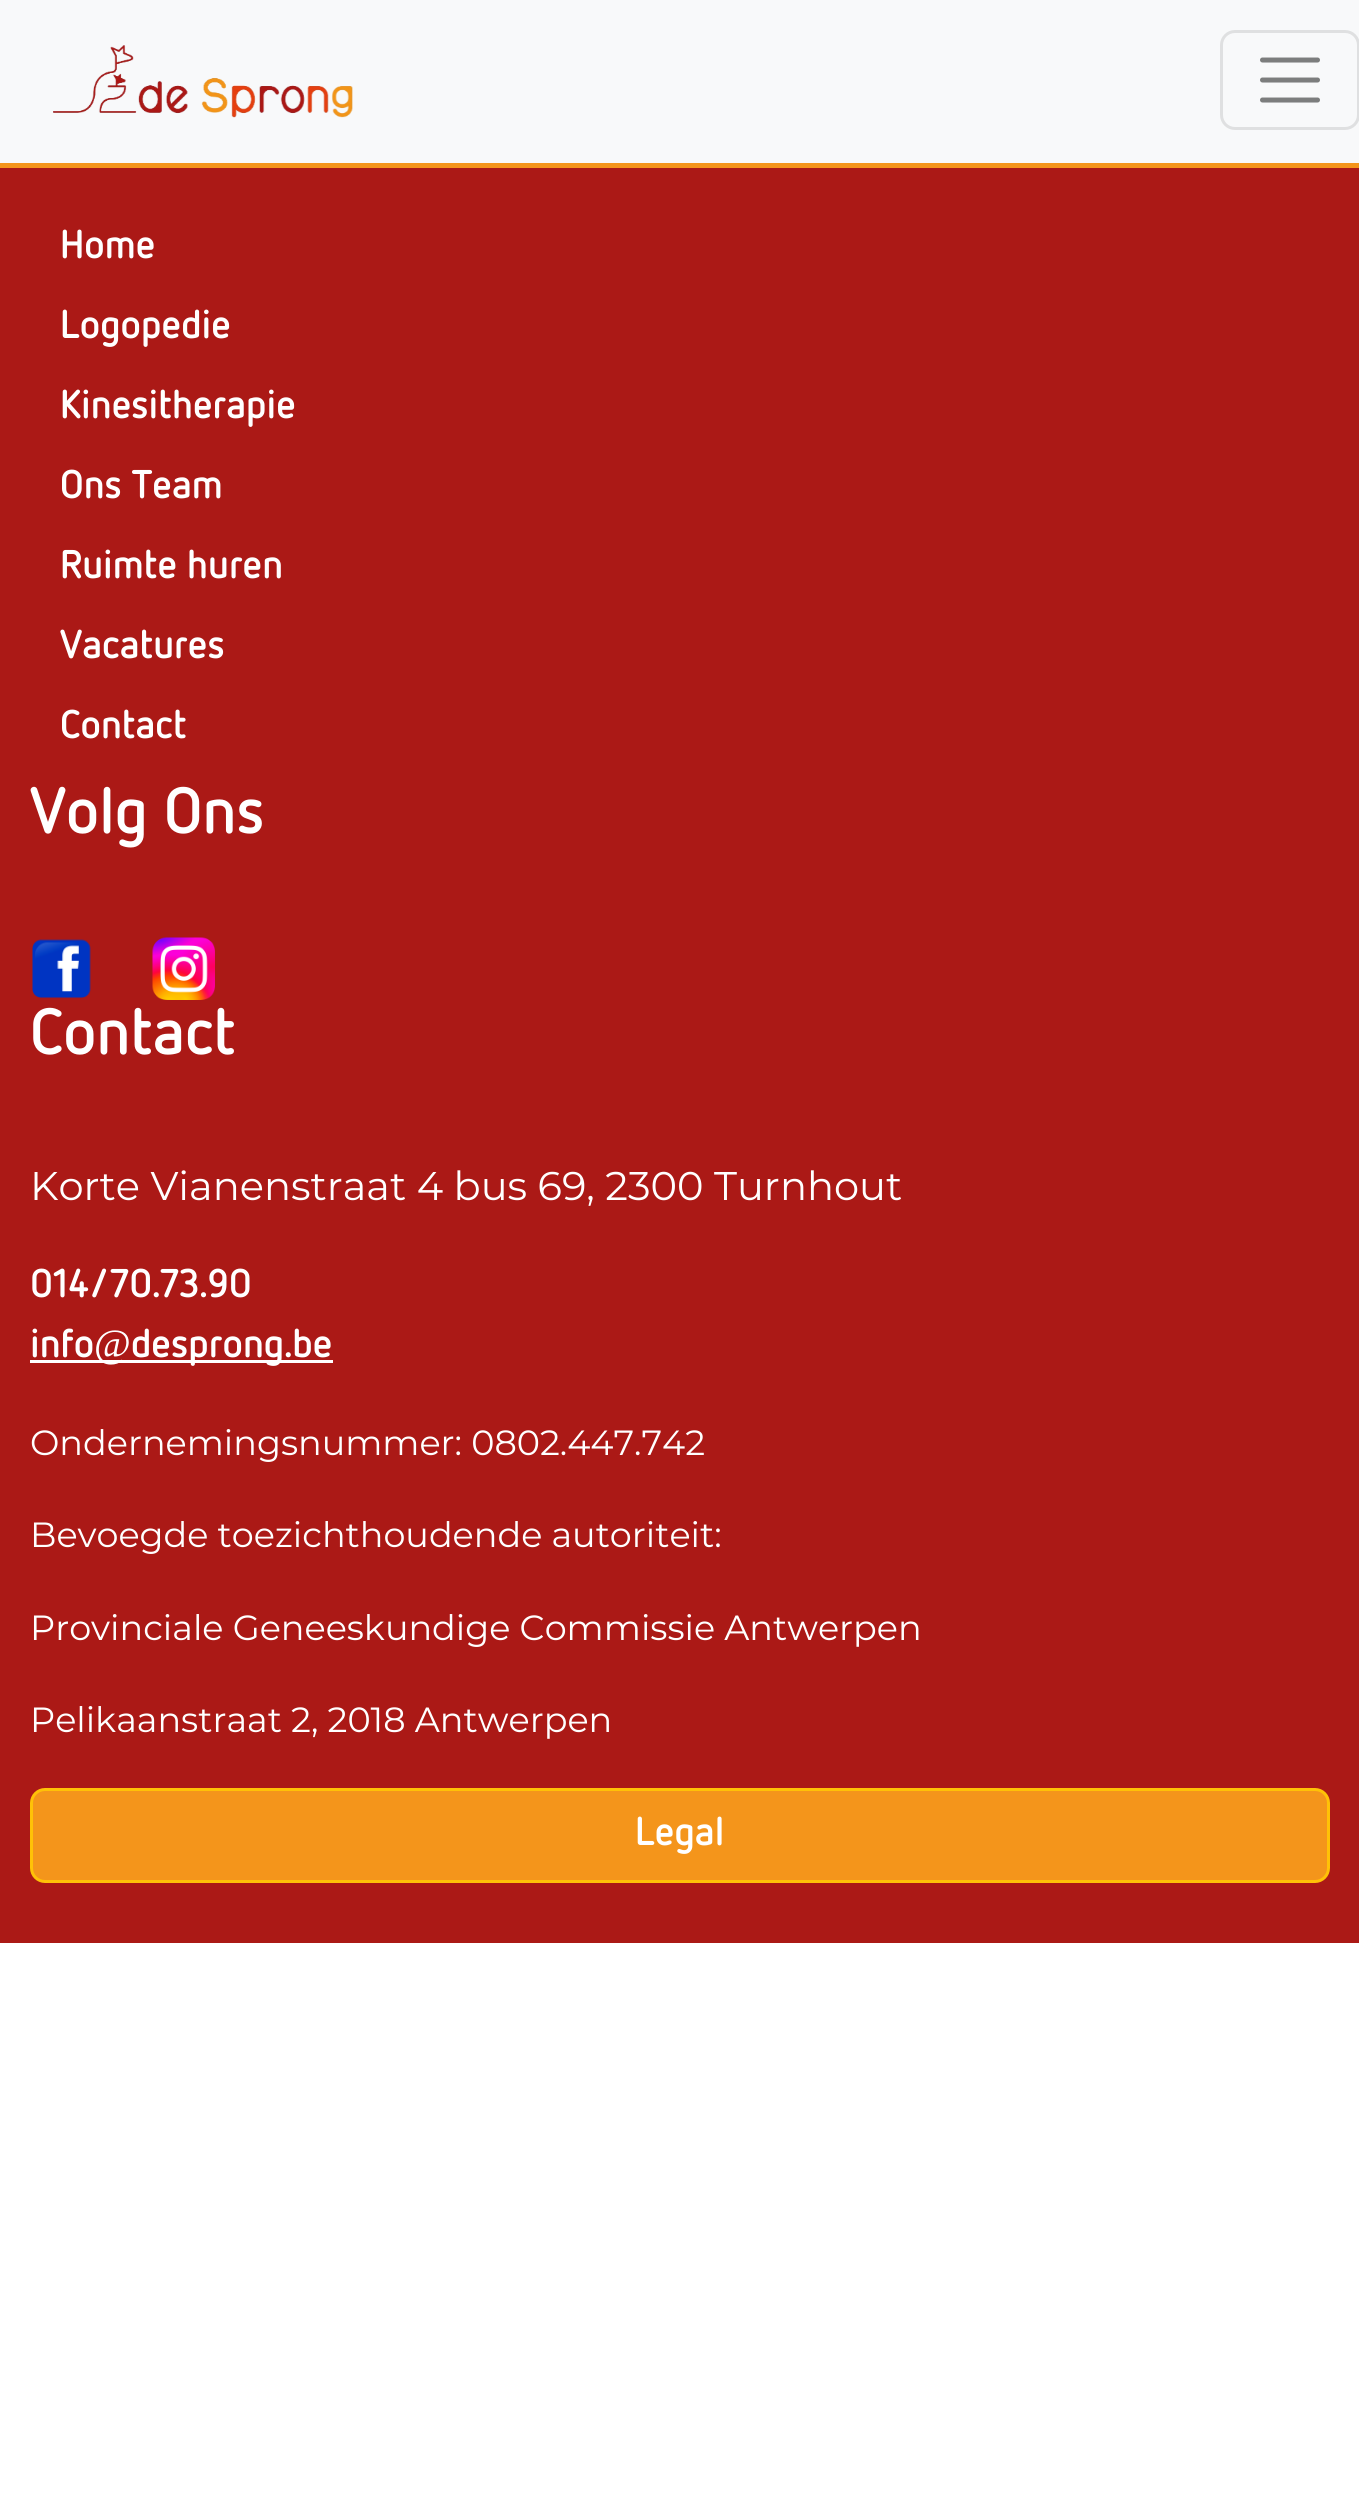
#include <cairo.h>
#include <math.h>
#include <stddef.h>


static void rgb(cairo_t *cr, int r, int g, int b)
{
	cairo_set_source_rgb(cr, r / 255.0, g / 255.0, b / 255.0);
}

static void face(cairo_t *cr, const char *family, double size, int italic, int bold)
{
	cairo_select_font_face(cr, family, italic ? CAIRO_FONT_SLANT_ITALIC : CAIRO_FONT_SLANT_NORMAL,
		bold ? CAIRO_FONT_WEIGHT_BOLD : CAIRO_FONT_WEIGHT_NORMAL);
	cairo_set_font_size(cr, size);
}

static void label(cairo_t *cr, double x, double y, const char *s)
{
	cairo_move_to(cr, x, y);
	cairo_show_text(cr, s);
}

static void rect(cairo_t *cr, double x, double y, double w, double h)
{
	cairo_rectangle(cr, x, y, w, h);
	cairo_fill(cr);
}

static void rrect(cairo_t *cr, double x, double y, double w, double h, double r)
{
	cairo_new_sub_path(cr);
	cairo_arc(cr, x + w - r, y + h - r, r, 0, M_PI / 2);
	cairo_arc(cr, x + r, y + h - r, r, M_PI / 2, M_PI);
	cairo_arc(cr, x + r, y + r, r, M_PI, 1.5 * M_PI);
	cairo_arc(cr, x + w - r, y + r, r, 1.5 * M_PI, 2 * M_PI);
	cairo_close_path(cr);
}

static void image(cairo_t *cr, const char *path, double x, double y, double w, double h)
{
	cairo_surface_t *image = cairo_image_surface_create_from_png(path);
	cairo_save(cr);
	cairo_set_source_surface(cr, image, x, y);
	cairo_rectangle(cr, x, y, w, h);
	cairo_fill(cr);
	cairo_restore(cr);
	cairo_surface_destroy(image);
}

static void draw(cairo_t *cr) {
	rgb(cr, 255, 255, 255);
	cairo_paint(cr);
	rgb(cr, 248, 249, 250);
	rect(cr, 0, 0, 1359, 163);
	rgb(cr, 244, 149, 27);
	rect(cr, 0, 163, 1359, 5);
	image(cr, "image0.png", 53, 45, 300, 73);
	rrect(cr, 1221.5, 31.5, 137, 97, 13.5);
	rgb(cr, 223, 224, 225);
	cairo_set_line_width(cr, 3);
	cairo_stroke(cr);
	cairo_new_path(cr);
	cairo_move_to(cr, 1262.5, 60);
	cairo_line_to(cr, 1317.5, 60);
	cairo_move_to(cr, 1262.5, 80);
	cairo_line_to(cr, 1317.5, 80);
	cairo_move_to(cr, 1262.5, 100);
	cairo_line_to(cr, 1317.5, 100);
	rgb(cr, 124, 125, 125);
	cairo_set_line_width(cr, 5);
	cairo_set_line_cap(cr, CAIRO_LINE_CAP_ROUND);
	cairo_stroke(cr);
	rgb(cr, 171, 25, 22);
	rect(cr, 0, 168, 1359, 1775);
	face(cr, "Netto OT", 40, 0, 1);
	rgb(cr, 255, 255, 255);
	label(cr, 60, 258, "Home");
	label(cr, 60, 338, "Logopedie");
	label(cr, 60, 418, "Kinesitherapie");
	label(cr, 60, 498, "Ons Team");
	label(cr, 60, 578, "Ruimte huren");
	label(cr, 60, 658, "Vacatures");
	label(cr, 60, 738, "Contact");
	face(cr, "Netto OT", 65, 0, 1);
	label(cr, 30, 833, "Volg Ons");
	image(cr, "image1.png", 32, 939, 59, 60);
	image(cr, "image2.png", 152, 937, 63, 63);
	label(cr, 30, 1054, "Contact");
	face(cr, "Montserrat", 40, 0, 0);
	label(cr, 30, 1200, "Korte Vianenstraat 4 bus 69, 2300 Turnhout");
	face(cr, "Netto OT", 40, 0, 1);
	label(cr, 30, 1297, "014/70.73.90");
	label(cr, 30, 1357, "info");
	rect(cr, 30, 1360, 303, 3);
	face(cr, "Liberation Serif", 40, 0, 0);
	label(cr, 94, 1357, "@");
	face(cr, "Netto OT", 40, 0, 1);
	label(cr, 131, 1357, "desprong.be");
	face(cr, "Montserrat", 35, 0, 0);
	label(cr, 30, 1455, "Ondernemingsnummer: 0802.447.742");
	label(cr, 30, 1547, "Bevoegde toezichthoudende autoriteit:");
	label(cr, 30, 1640, "Provinciale Geneeskundige Commissie Antwerpen");
	label(cr, 30, 1732, "Pelikaanstraat 2, 2018 Antwerpen");
	rgb(cr, 244, 149, 27);
	rrect(cr, 31.5, 1789.5, 1297, 92, 13.5);
	cairo_fill_preserve(cr);
	rgb(cr, 255, 193, 7);
	cairo_set_line_width(cr, 3);
	cairo_set_line_cap(cr, CAIRO_LINE_CAP_BUTT);
	cairo_stroke(cr);
	face(cr, "Netto OT", 40, 0, 1);
	rgb(cr, 255, 255, 255);
	label(cr, 635, 1845, "Legal");
}

int main(void) {
	cairo_surface_t *surface = cairo_image_surface_create(CAIRO_FORMAT_RGB24, 1359, 2517);
	cairo_t *cr = cairo_create(surface);
	cairo_font_options_t *options = cairo_font_options_create();
	cairo_font_options_set_hint_metrics(options, CAIRO_HINT_METRICS_OFF);
	cairo_font_options_set_hint_style(options, CAIRO_HINT_STYLE_NONE);
	cairo_set_font_options(cr, options);
	cairo_set_miter_limit(cr, 4);
	draw(cr);
	cairo_surface_write_to_png(surface, "render.png");
	cairo_font_options_destroy(options);
	cairo_destroy(cr);
	cairo_surface_destroy(surface);
	return 0;
}
